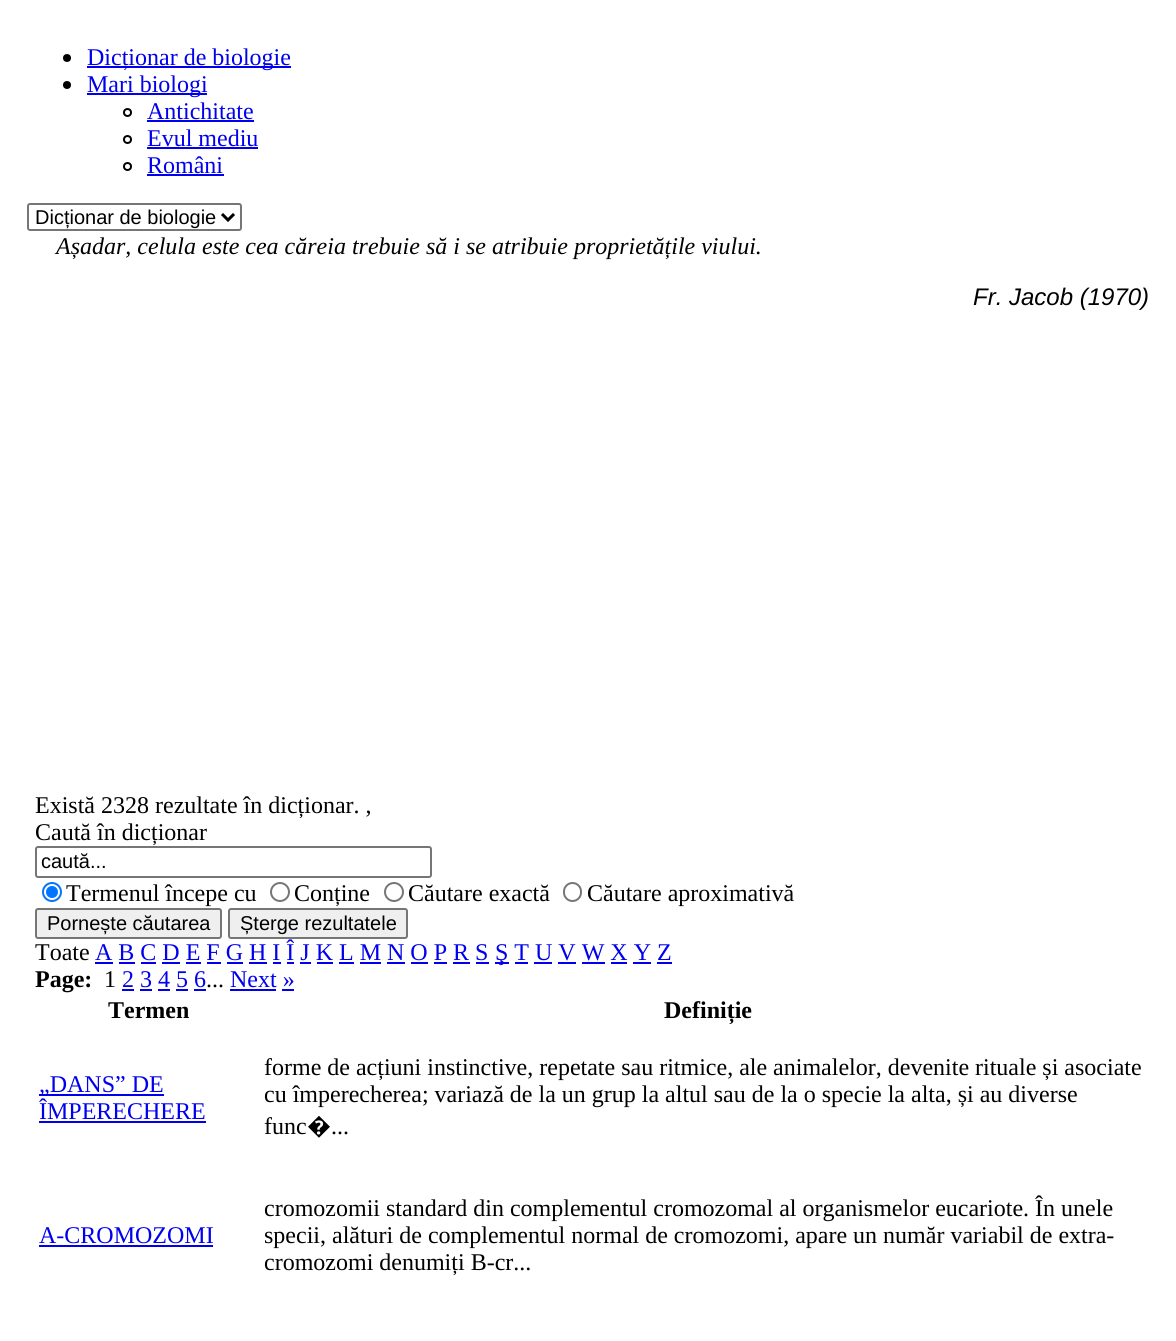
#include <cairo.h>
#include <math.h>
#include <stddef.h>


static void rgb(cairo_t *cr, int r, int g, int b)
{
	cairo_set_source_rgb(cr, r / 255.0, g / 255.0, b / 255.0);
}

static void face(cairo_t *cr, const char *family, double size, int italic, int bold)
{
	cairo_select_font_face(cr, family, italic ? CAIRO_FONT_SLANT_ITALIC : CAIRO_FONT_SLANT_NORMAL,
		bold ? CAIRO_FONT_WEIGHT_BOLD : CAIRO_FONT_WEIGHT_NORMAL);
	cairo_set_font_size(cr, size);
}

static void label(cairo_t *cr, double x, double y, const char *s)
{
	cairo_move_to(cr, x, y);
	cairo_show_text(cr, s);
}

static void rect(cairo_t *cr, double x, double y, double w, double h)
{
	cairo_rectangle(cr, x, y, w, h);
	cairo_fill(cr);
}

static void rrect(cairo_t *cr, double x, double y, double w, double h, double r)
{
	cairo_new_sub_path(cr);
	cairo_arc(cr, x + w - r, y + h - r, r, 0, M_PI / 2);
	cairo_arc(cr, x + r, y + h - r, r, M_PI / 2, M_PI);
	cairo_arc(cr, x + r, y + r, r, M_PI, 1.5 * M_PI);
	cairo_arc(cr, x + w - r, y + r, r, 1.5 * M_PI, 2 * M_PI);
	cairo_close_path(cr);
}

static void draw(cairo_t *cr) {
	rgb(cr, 255, 255, 255);
	cairo_paint(cr);
	rgb(cr, 0, 0, 0);
	cairo_arc(cr, 67, 58, 4, 0, 2 * M_PI);
	cairo_fill(cr);
	rgb(cr, 0, 0, 238);
	rect(cr, 87, 66, 204, 2);
	face(cr, "Liberation Serif", 24, 0, 0);
	label(cr, 87, 65, "Dicționar de biologie");
	rgb(cr, 0, 0, 0);
	cairo_new_path(cr);
	cairo_arc(cr, 67, 85, 4, 0, 2 * M_PI);
	cairo_fill(cr);
	rgb(cr, 0, 0, 238);
	rect(cr, 87, 93, 120, 2);
	label(cr, 87, 92, "Mari biologi");
	cairo_new_path(cr);
	cairo_arc(cr, 127.5, 112.5, 3.5, 0, 2 * M_PI);
	rgb(cr, 0, 0, 0);
	cairo_stroke(cr);
	rgb(cr, 0, 0, 238);
	label(cr, 147, 119, "Antichitate");
	rect(cr, 147, 120, 107, 2);
	cairo_new_path(cr);
	cairo_arc(cr, 127.5, 139.5, 3.5, 0, 2 * M_PI);
	rgb(cr, 0, 0, 0);
	cairo_stroke(cr);
	rgb(cr, 0, 0, 238);
	label(cr, 147, 146, "Evul mediu");
	rect(cr, 147, 147, 111, 2);
	cairo_new_path(cr);
	cairo_arc(cr, 127.5, 166.5, 3.5, 0, 2 * M_PI);
	rgb(cr, 0, 0, 0);
	cairo_stroke(cr);
	rgb(cr, 0, 0, 238);
	label(cr, 147, 173, "Români");
	rect(cr, 147, 174, 77, 2);
	rrect(cr, 28, 204, 213, 26, 2);
	rgb(cr, 118, 118, 118);
	cairo_stroke(cr);
	cairo_new_path(cr);
	cairo_move_to(cr, 222, 214);
	cairo_line_to(cr, 228, 220);
	cairo_line_to(cr, 234, 214);
	rgb(cr, 0, 0, 0);
	cairo_set_line_width(cr, 3);
	cairo_stroke(cr);
	face(cr, "Liberation Sans", 20, 0, 0);
	label(cr, 35, 224, "Dicționar de biologie");
	face(cr, "Liberation Serif", 24, 1, 0);
	label(cr, 56, 254, "Așadar, celula este cea căreia trebuie să i se atribuie proprietățile viului.");
	face(cr, "Liberation Sans", 24, 1, 0);
	label(cr, 973, 305, "Fr. Jacob (1970)");
	face(cr, "Liberation Serif", 24, 0, 0);
	label(cr, 35, 813, "Există 2328 rezultate în dicționar. ,");
	label(cr, 35, 840, "Caută în dicționar");
	rrect(cr, 36, 847, 395, 30, 2);
	rgb(cr, 118, 118, 118);
	cairo_set_line_width(cr, 2);
	cairo_stroke(cr);
	face(cr, "Liberation Sans", 20, 0, 0);
	rgb(cr, 0, 0, 0);
	label(cr, 41, 868, "caută...");
	cairo_new_path(cr);
	cairo_arc(cr, 52, 892, 9, 0, 2 * M_PI);
	rgb(cr, 0, 117, 255);
	cairo_stroke(cr);
	cairo_arc(cr, 52, 892, 6, 0, 2 * M_PI);
	cairo_fill(cr);
	face(cr, "Liberation Serif", 24, 0, 0);
	rgb(cr, 0, 0, 0);
	label(cr, 66, 901, "Termenul începe cu");
	cairo_new_path(cr);
	cairo_arc(cr, 280, 892, 9, 0, 2 * M_PI);
	rgb(cr, 118, 118, 118);
	cairo_stroke(cr);
	rgb(cr, 0, 0, 0);
	label(cr, 294, 901, "Conține");
	cairo_new_path(cr);
	cairo_arc(cr, 394, 892, 9, 0, 2 * M_PI);
	rgb(cr, 118, 118, 118);
	cairo_stroke(cr);
	rgb(cr, 0, 0, 0);
	label(cr, 408, 901, "Căutare exactă");
	rrect(cr, 564, 883, 17, 18, 8.5);
	rgb(cr, 118, 118, 118);
	cairo_stroke(cr);
	rgb(cr, 0, 0, 0);
	label(cr, 587, 901, "Căutare aproximativă");
	rgb(cr, 239, 239, 239);
	rrect(cr, 36, 909, 185, 29, 2);
	cairo_fill_preserve(cr);
	rgb(cr, 118, 118, 118);
	cairo_stroke(cr);
	face(cr, "Liberation Sans", 20, 0, 0);
	rgb(cr, 0, 0, 0);
	label(cr, 47, 930, "Pornește căutarea");
	rgb(cr, 239, 239, 239);
	rrect(cr, 229, 909, 178, 29, 2);
	cairo_fill_preserve(cr);
	rgb(cr, 118, 118, 118);
	cairo_stroke(cr);
	rgb(cr, 0, 0, 0);
	label(cr, 240, 930, "Șterge rezultatele");
	face(cr, "Liberation Serif", 24, 0, 0);
	label(cr, 35, 960, "Toate");
	rgb(cr, 0, 0, 238);
	label(cr, 95, 960, "A B C D E F G H I Î J K L M N O P R S");
	rect(cr, 95, 962, 18, 2);
	rect(cr, 495, 962, 14, 2);
	label(cr, 495, 960, "Ş T U V W X Y Z");
	rect(cr, 119, 962, 16, 2);
	rect(cr, 141, 962, 15, 2);
	rect(cr, 162, 962, 18, 2);
	rect(cr, 186, 962, 15, 2);
	rect(cr, 207, 962, 14, 2);
	rect(cr, 227, 962, 16, 2);
	rect(cr, 249, 962, 18, 2);
	rect(cr, 273, 962, 8, 2);
	rect(cr, 287, 962, 7, 2);
	rect(cr, 300, 962, 11, 2);
	rect(cr, 317, 962, 16, 2);
	rect(cr, 339, 962, 15, 2);
	rect(cr, 360, 962, 21, 2);
	rect(cr, 387, 962, 18, 2);
	rect(cr, 411, 962, 17, 2);
	rect(cr, 434, 962, 13, 2);
	rect(cr, 453, 962, 17, 2);
	rect(cr, 476, 962, 13, 2);
	rect(cr, 515, 962, 13, 2);
	rect(cr, 534, 962, 18, 2);
	rect(cr, 558, 962, 18, 2);
	rect(cr, 582, 962, 23, 2);
	rect(cr, 611, 962, 16, 2);
	rect(cr, 633, 962, 18, 2);
	rect(cr, 657, 962, 15, 2);
	face(cr, "Liberation Serif", 24, 0, 1);
	rgb(cr, 0, 0, 0);
	label(cr, 35, 987, "Page:");
	face(cr, "Liberation Serif", 24, 0, 0);
	label(cr, 104, 987, "1");
	rgb(cr, 0, 0, 238);
	label(cr, 122, 987, "2 3 4 5 6");
	rect(cr, 122, 989, 12, 2);
	rgb(cr, 0, 0, 0);
	label(cr, 206, 987, "...");
	rgb(cr, 0, 0, 238);
	label(cr, 230, 987, "Next »");
	rect(cr, 230, 989, 46, 2);
	rect(cr, 140, 989, 12, 2);
	rect(cr, 158, 989, 12, 2);
	rect(cr, 176, 989, 12, 2);
	rect(cr, 194, 989, 12, 2);
	rect(cr, 282, 989, 12, 2);
	face(cr, "Liberation Serif", 24, 0, 1);
	rgb(cr, 0, 0, 0);
	label(cr, 108, 1018, "Termen");
	label(cr, 664, 1018, "Definiție");
	rgb(cr, 0, 0, 238);
	rect(cr, 39, 1094, 125, 2);
	face(cr, "Liberation Serif", 24, 0, 0);
	label(cr, 39, 1092, "„DANS” DE");
	label(cr, 39, 1119, "ÎMPERECHERE");
	rect(cr, 39, 1121, 167, 2);
	rgb(cr, 0, 0, 0);
	label(cr, 264, 1075, "forme de acțiuni instinctive, repetate sau ritmice, ale animalelor, devenite rituale și asociate");
	label(cr, 264, 1102, "cu împerecherea; variază de la un grup la altul sau de la o specie la alta, și au diverse");
	label(cr, 264, 1134, "func");
	face(cr, "Noto Sans", 24, 0, 0);
	label(cr, 307, 1134, "�");
	face(cr, "Liberation Serif", 24, 0, 0);
	label(cr, 331, 1134, "...");
	rgb(cr, 0, 0, 238);
	label(cr, 39, 1243, "A-CROMOZOMI");
	rect(cr, 39, 1245, 174, 2);
	rgb(cr, 0, 0, 0);
	label(cr, 264, 1216, "cromozomii standard din complementul cromozomal al organismelor eucariote. În unele");
	label(cr, 264, 1243, "specii, alături de complementul normal de cromozomi, apare un număr variabil de extra-");
	label(cr, 264, 1270, "cromozomi denumiți B-cr...");
}

int main(void) {
	cairo_surface_t *surface = cairo_image_surface_create(CAIRO_FORMAT_RGB24, 1176, 1341);
	cairo_t *cr = cairo_create(surface);
	cairo_font_options_t *options = cairo_font_options_create();
	cairo_font_options_set_hint_metrics(options, CAIRO_HINT_METRICS_OFF);
	cairo_font_options_set_hint_style(options, CAIRO_HINT_STYLE_NONE);
	cairo_set_font_options(cr, options);
	cairo_set_miter_limit(cr, 4);
	draw(cr);
	cairo_surface_write_to_png(surface, "render.png");
	cairo_font_options_destroy(options);
	cairo_destroy(cr);
	cairo_surface_destroy(surface);
	return 0;
}
